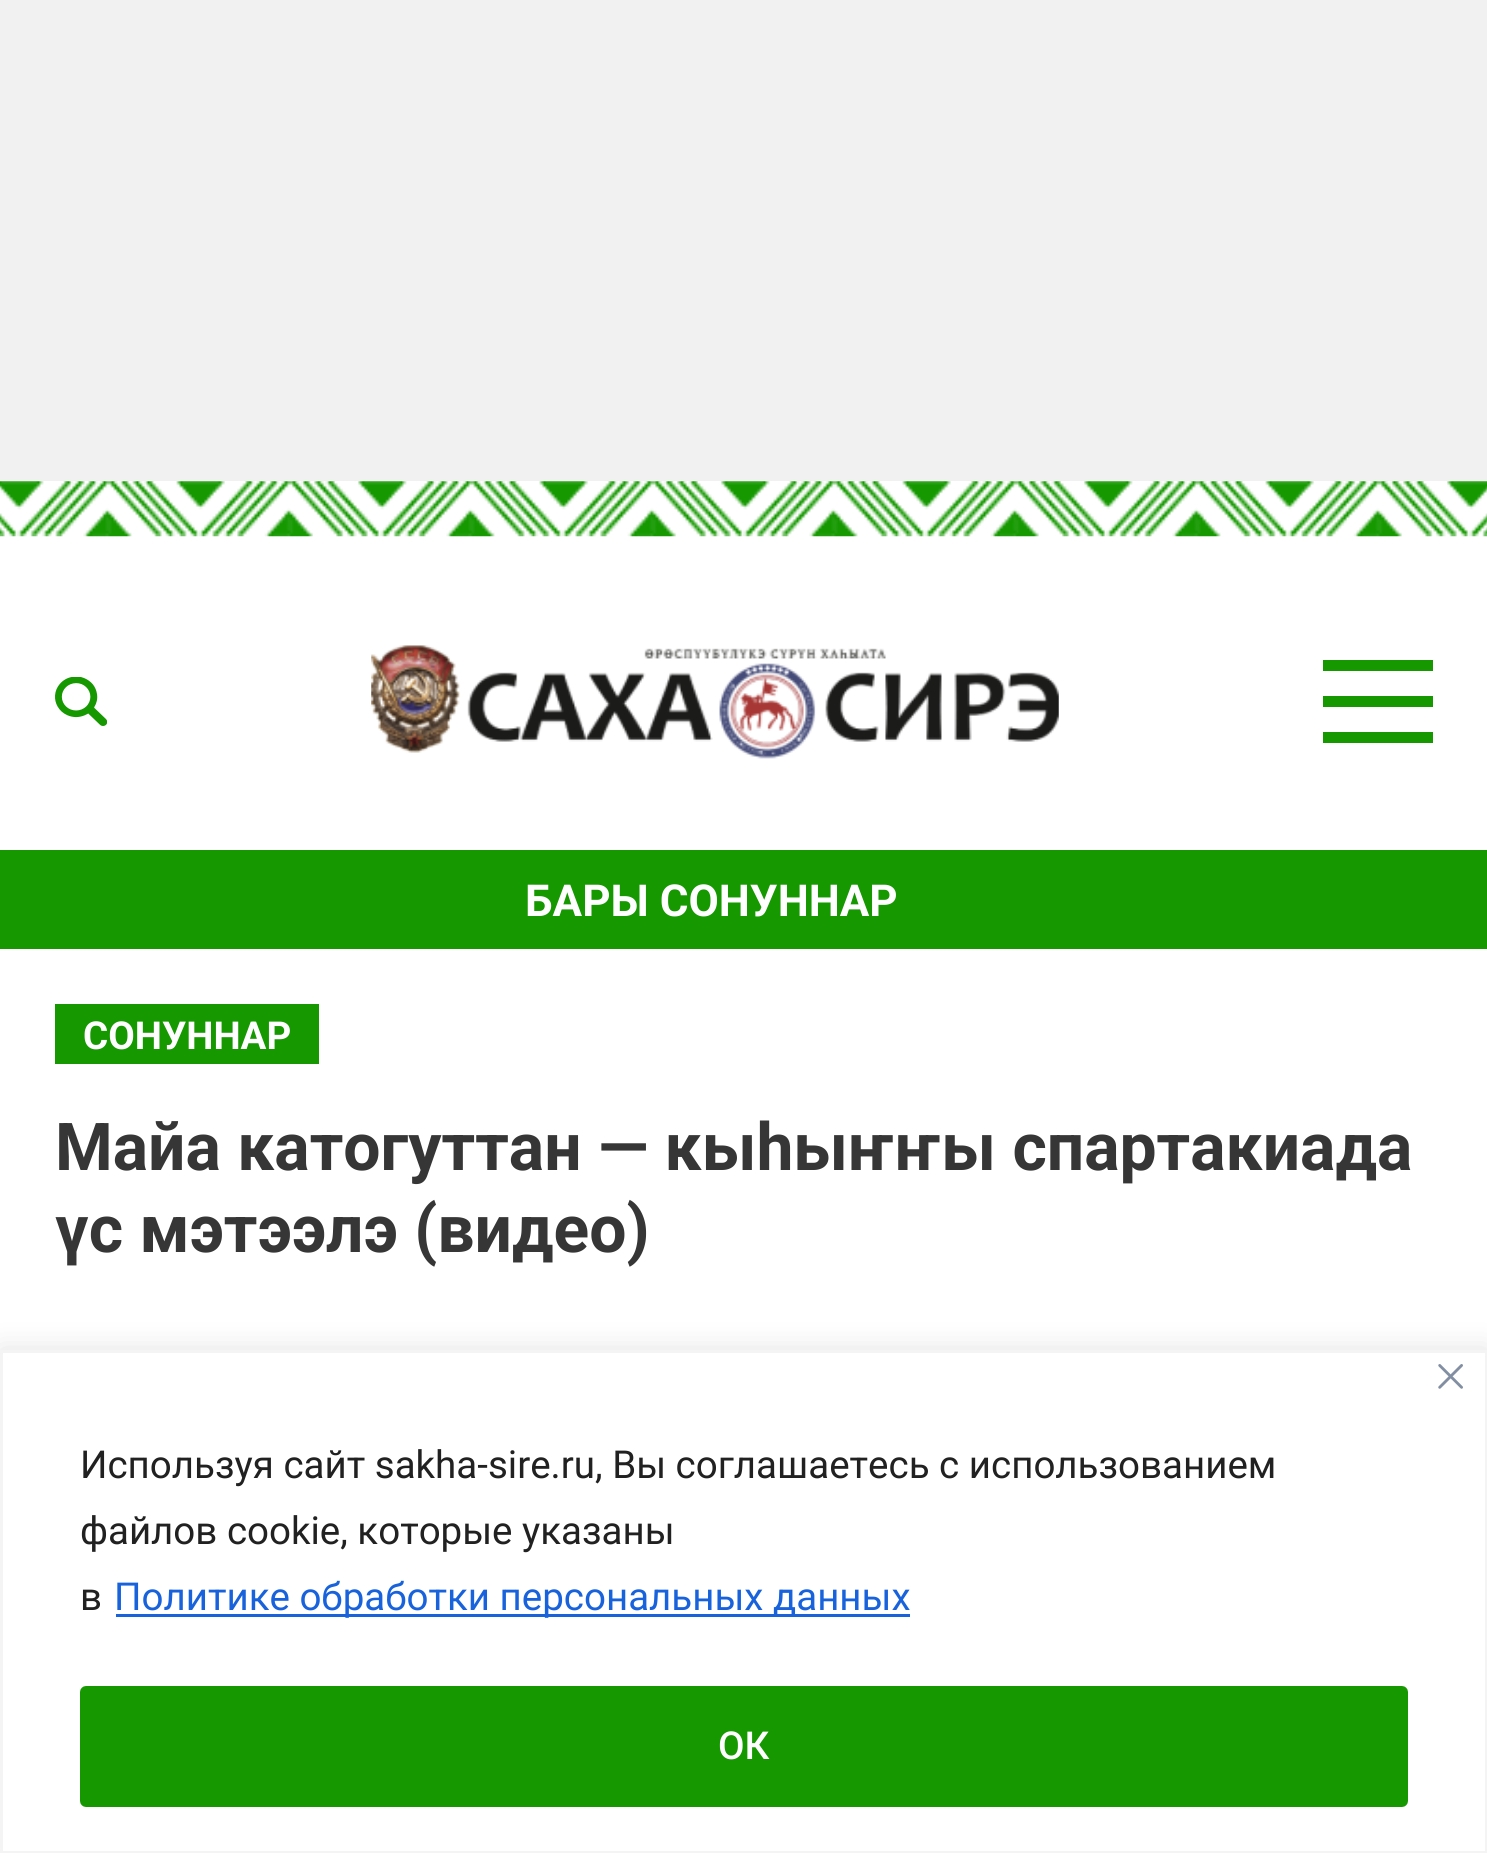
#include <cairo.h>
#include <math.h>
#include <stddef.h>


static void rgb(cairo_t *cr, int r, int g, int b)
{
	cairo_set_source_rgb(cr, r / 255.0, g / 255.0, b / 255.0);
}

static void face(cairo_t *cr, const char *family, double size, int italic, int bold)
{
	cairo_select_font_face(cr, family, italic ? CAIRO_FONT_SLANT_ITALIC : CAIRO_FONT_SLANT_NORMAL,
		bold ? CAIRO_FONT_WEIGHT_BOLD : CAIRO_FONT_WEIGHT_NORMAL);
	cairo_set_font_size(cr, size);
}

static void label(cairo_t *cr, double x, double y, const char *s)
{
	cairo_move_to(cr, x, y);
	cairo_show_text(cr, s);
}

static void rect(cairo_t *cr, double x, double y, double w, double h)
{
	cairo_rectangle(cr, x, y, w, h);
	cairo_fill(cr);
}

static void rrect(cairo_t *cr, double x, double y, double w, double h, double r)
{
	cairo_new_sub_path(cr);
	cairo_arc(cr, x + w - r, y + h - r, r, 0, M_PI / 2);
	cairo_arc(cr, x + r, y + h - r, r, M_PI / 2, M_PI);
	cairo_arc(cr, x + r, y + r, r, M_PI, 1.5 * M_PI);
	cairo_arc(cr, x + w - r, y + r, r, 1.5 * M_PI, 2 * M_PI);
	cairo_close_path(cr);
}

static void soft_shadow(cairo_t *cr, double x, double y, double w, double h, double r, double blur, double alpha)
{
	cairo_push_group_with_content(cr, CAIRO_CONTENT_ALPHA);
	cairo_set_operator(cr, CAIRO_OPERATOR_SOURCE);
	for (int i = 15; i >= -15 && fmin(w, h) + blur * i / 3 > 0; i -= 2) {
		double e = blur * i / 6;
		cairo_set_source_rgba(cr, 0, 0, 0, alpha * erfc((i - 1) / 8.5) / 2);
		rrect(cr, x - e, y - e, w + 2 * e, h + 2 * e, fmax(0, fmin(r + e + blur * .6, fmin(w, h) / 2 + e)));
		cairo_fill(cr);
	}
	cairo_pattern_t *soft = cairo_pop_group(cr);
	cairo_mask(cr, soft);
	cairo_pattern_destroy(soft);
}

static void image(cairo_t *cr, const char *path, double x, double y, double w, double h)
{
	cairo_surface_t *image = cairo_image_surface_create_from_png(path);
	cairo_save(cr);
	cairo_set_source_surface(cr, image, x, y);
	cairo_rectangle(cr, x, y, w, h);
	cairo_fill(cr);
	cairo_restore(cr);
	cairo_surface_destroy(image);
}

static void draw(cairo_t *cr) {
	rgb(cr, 255, 255, 255);
	cairo_paint(cr);
	rgb(cr, 241, 241, 241);
	rect(cr, 0, 0, 1487, 481);
	image(cr, "image0.png", 0, 481, 1487, 56);
	image(cr, "image1.png", 55, 677, 52, 49);
	image(cr, "image2.png", 371, 645, 688, 114);
	rgb(cr, 21, 152, 0);
	rect(cr, 1323, 660, 110, 11);
	rect(cr, 1323, 696, 110, 11);
	rect(cr, 1323, 732, 110, 11);
	rect(cr, 0, 850, 1487, 99);
	face(cr, "Roboto", 44, 0, 1);
	rgb(cr, 255, 255, 255);
	label(cr, 525, 916, "БАРЫ СОНУННАР");
	rgb(cr, 21, 152, 0);
	rect(cr, 55, 1004, 264, 60);
	face(cr, "Roboto", 38.5, 0, 1);
	rgb(cr, 255, 255, 255);
	label(cr, 83, 1049, "СОНУННАР");
	face(cr, "Roboto", 66, 0, 1);
	rgb(cr, 54, 54, 54);
	label(cr, 55, 1170, "Майа катогуттан — кыһыҥҥы спартакиада");
	label(cr, 55, 1252, "үс мэтээлэ (видео)");
	rgb(cr, 172, 171, 171);
	soft_shadow(cr, 0, 1348, 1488, 503, 0, 14, 0.3);
	rgb(cr, 255, 255, 255);
	cairo_rectangle(cr, 1.5, 1351.5, 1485, 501);
	cairo_fill_preserve(cr);
	rgb(cr, 244, 244, 244);
	cairo_set_line_width(cr, 3);
	cairo_stroke(cr);
	image(cr, "image3.png", 1438, 1364, 25, 25);
	face(cr, "Roboto", 38.5, 0, 0);
	rgb(cr, 33, 33, 33);
	label(cr, 80, 1478, "Используя сайт sakha-sire.ru, Вы соглашаетесь с использованием");
	label(cr, 80, 1544, "файлов cookie, которые указаны");
	label(cr, 80, 1610, "в");
	rgb(cr, 24, 99, 220);
	rect(cr, 116, 1614, 794, 3);
	label(cr, 114, 1610, "Политике обработки персональных данных");
	rgb(cr, 21, 152, 0);
	rrect(cr, 83, 1689, 1322, 115, 3);
	cairo_fill_preserve(cr);
	cairo_set_line_width(cr, 6);
	cairo_stroke(cr);
	face(cr, "Roboto Medium", 38.5, 0, 0);
	rgb(cr, 255, 255, 255);
	label(cr, 718, 1759, "ОК");
}

int main(void) {
	cairo_surface_t *surface = cairo_image_surface_create(CAIRO_FORMAT_RGB24, 1487, 1853);
	cairo_t *cr = cairo_create(surface);
	cairo_font_options_t *options = cairo_font_options_create();
	cairo_font_options_set_hint_metrics(options, CAIRO_HINT_METRICS_OFF);
	cairo_font_options_set_hint_style(options, CAIRO_HINT_STYLE_NONE);
	cairo_set_font_options(cr, options);
	cairo_set_miter_limit(cr, 4);
	draw(cr);
	cairo_surface_write_to_png(surface, "render.png");
	cairo_font_options_destroy(options);
	cairo_destroy(cr);
	cairo_surface_destroy(surface);
	return 0;
}
